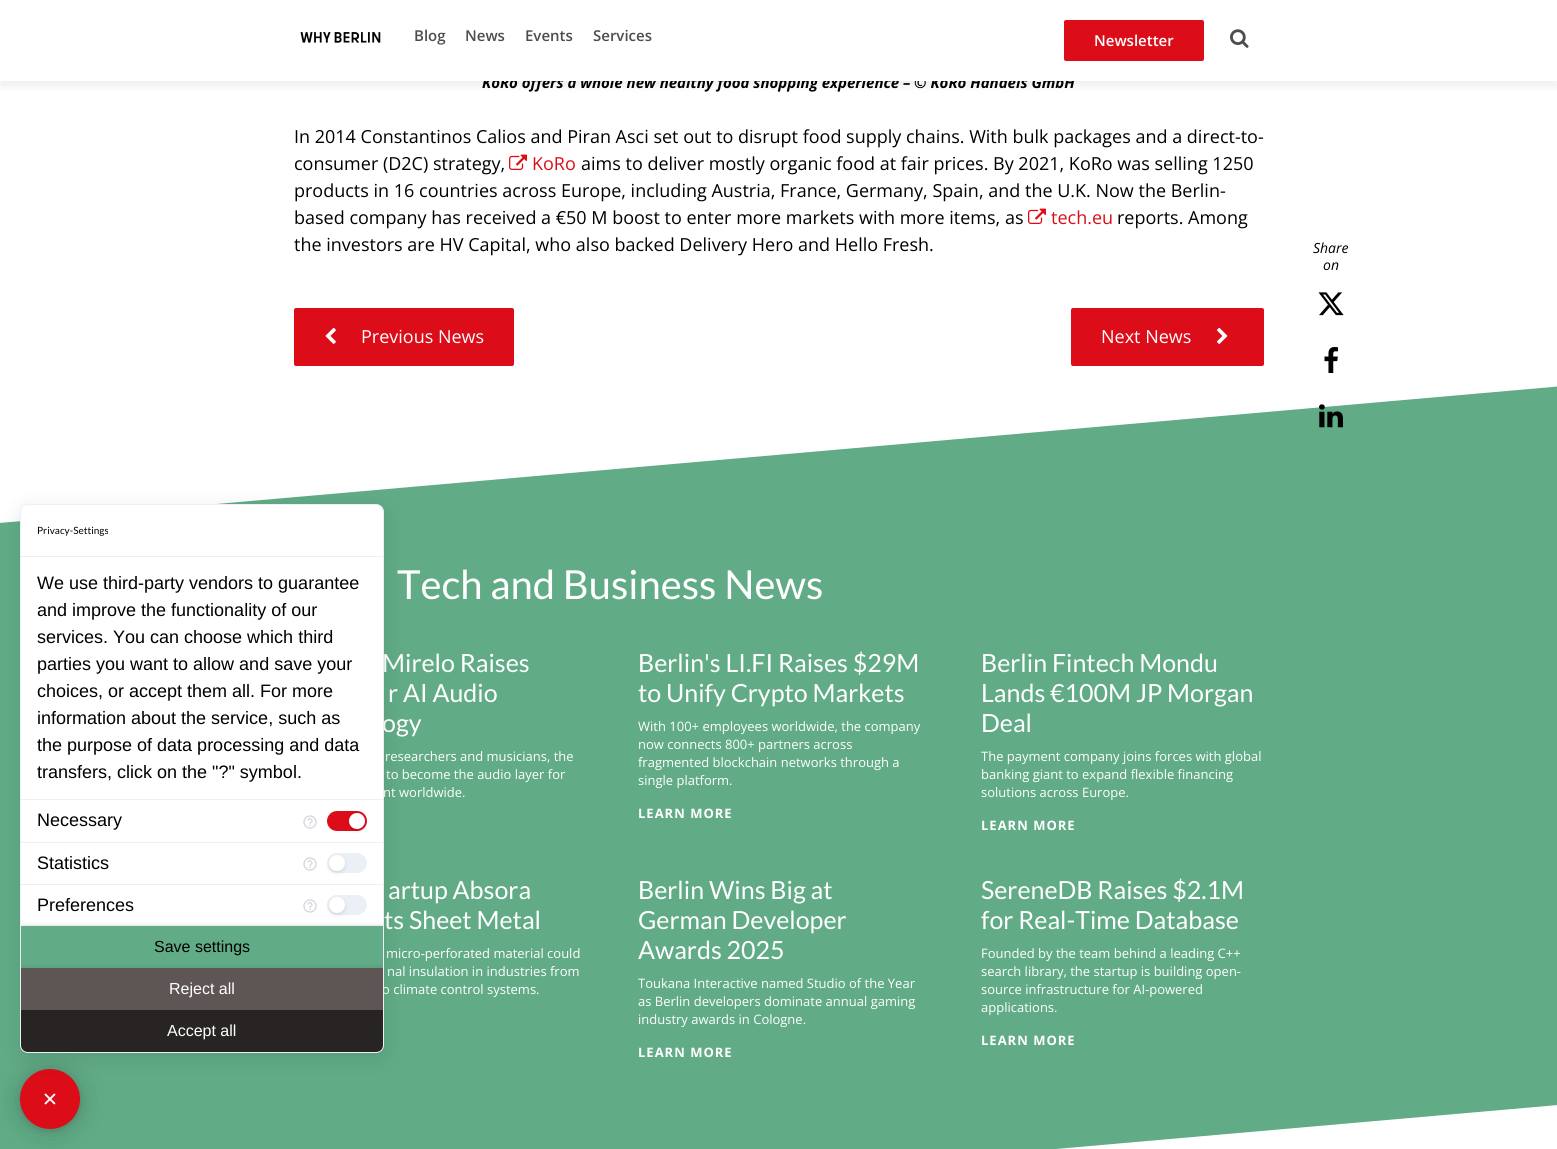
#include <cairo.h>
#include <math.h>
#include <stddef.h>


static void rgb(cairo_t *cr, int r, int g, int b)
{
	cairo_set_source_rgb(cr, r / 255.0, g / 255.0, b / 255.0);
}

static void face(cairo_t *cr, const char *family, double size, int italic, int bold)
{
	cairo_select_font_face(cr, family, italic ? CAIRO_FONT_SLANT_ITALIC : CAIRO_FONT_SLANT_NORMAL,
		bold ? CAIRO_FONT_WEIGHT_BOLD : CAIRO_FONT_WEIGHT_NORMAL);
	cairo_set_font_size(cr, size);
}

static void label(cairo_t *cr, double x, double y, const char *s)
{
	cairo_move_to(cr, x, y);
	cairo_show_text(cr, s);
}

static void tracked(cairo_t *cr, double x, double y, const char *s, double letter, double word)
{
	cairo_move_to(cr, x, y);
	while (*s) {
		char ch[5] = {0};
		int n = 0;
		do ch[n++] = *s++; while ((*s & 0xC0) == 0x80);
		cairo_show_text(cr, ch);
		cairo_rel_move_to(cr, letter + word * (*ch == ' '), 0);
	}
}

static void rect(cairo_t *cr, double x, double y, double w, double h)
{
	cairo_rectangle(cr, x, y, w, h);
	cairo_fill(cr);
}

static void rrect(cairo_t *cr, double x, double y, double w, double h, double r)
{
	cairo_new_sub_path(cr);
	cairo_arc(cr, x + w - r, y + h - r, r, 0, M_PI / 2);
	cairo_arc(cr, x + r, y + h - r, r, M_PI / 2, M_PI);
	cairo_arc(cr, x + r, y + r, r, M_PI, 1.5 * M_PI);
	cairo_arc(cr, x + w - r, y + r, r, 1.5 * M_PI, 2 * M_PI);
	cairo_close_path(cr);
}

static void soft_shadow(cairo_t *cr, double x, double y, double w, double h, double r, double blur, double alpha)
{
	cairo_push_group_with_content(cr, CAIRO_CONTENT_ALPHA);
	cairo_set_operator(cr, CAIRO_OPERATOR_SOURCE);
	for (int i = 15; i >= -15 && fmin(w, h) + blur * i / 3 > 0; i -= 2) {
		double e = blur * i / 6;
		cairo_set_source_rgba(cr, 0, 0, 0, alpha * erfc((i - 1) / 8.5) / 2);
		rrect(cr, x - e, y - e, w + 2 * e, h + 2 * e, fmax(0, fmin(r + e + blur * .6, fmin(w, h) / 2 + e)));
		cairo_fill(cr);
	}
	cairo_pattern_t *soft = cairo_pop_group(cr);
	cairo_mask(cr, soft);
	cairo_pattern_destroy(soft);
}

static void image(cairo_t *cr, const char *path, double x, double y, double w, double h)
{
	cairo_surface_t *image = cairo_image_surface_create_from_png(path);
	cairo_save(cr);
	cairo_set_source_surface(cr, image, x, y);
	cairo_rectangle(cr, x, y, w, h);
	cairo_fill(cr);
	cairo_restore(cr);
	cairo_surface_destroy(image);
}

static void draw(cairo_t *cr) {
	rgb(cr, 255, 255, 255);
	cairo_paint(cr);
	rgb(cr, 0, 0, 0);
	soft_shadow(cr, 0, 6, 1557, 81, 0, 3.5, 0.06);
	face(cr, "Open Sans", 15, 1, 1);
	rgb(cr, 0, 0, 0);
	label(cr, 482, 88, "KoRo offers a whole new healthy food shopping experience – © KoRo Handels GmbH");
	rgb(cr, 255, 255, 255);
	rect(cr, 0, 3, 1557, 78);
	image(cr, "image0.png", 300, 32, 81, 11);
	face(cr, "Open Sans SemiBold", 15, 0, 0);
	rgb(cr, 77, 77, 77);
	label(cr, 414, 41, "Blog");
	label(cr, 465, 41, "News");
	label(cr, 525, 41, "Events");
	label(cr, 593, 41, "Services");
	rgb(cr, 220, 12, 25);
	rrect(cr, 1064, 20, 140, 41, 2);
	cairo_fill(cr);
	rgb(cr, 255, 255, 255);
	label(cr, 1094, 46, "Newsletter");
	image(cr, "image1.png", 1230, 29, 19, 19);
	face(cr, "Open Sans", 18, 0, 0);
	rgb(cr, 0, 0, 0);
	label(cr, 294, 143, "In 2014 Constantinos Calios and Piran Asci set out to disrupt food supply chains. With bulk packages and a direct-to-");
	label(cr, 294, 170, "consumer (D2C) strategy,");
	image(cr, "image2.png", 509, 154, 18, 16);
	rgb(cr, 220, 12, 25);
	label(cr, 532, 170, "KoRo");
	rgb(cr, 0, 0, 0);
	label(cr, 581, 170, "aims to deliver mostly organic food at fair prices. By 2021, KoRo was selling 1250");
	label(cr, 294, 197, "products in 16 countries across Europe, including Austria, France, Germany, Spain, and the U.K. Now the Berlin-");
	label(cr, 294, 224, "based company has received a €50 M boost to enter more markets with more items, as");
	image(cr, "image2.png", 1028, 208, 18, 16);
	rgb(cr, 220, 12, 25);
	label(cr, 1051, 224, "tech.eu");
	rgb(cr, 0, 0, 0);
	label(cr, 1117, 224, "reports. Among");
	label(cr, 294, 251, "the investors are HV Capital, who also backed Delivery Hero and Hello Fresh.");
	rgb(cr, 220, 12, 25);
	rrect(cr, 294, 308, 220, 58, 2);
	cairo_fill(cr);
	image(cr, "image3.png", 325, 327, 11, 17);
	rgb(cr, 255, 255, 255);
	label(cr, 361, 343, "Previous News");
	rgb(cr, 220, 12, 25);
	rrect(cr, 1071, 308, 193, 58, 2);
	cairo_fill(cr);
	rgb(cr, 255, 255, 255);
	label(cr, 1101, 343, "Next News");
	image(cr, "image4.png", 1216, 327, 12, 17);
	rgb(cr, 97, 171, 134);
	cairo_new_path(cr);
	cairo_move_to(cr, -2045, 702);
	cairo_line_to(cr, 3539, 213);
	cairo_line_to(cr, 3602, 926);
	cairo_line_to(cr, -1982, 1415);
	cairo_close_path(cr);
	cairo_fill(cr);
	face(cr, "Lato", 40, 0, 0);
	rgb(cr, 255, 255, 255);
	label(cr, 397, 599, "Tech and Business News");
	face(cr, "Lato", 25, 0, 0);
	label(cr, 382, 672, "Mirelo Raises");
	label(cr, 388, 702, "r AI Audio");
	label(cr, 382, 732, "ogy");
	face(cr, "Open Sans", 13, 0, 0);
	label(cr, 385, 761, "researchers and musicians, the");
	label(cr, 386, 779, "to become the audio layer for");
	label(cr, 383, 797, "nt worldwide.");
	face(cr, "Lato", 25, 0, 0);
	label(cr, 638, 672, "Berlin's LI.FI Raises $29M");
	label(cr, 638, 702, "to Unify Crypto Markets");
	face(cr, "Open Sans", 13, 0, 0);
	label(cr, 638, 731, "With 100+ employees worldwide, the company");
	label(cr, 638, 749, "now connects 800+ partners across");
	label(cr, 638, 767, "fragmented blockchain networks through a");
	label(cr, 638, 785, "single platform.");
	face(cr, "Open Sans", 13, 0, 1);
	tracked(cr, 638, 818, "LEARN MORE", 1, 0);
	face(cr, "Lato", 25, 0, 0);
	label(cr, 981, 672, "Berlin Fintech Mondu");
	label(cr, 981, 702, "Lands €100M JP Morgan");
	label(cr, 981, 732, "Deal");
	face(cr, "Open Sans", 13, 0, 0);
	label(cr, 981, 761, "The payment company joins forces with global");
	label(cr, 981, 779, "banking giant to expand flexible financing");
	label(cr, 981, 797, "solutions across Europe.");
	face(cr, "Open Sans", 13, 0, 1);
	tracked(cr, 981, 830, "LEARN MORE", 1, 0);
	face(cr, "Lato", 25, 0, 0);
	label(cr, 388, 899, "artup Absora");
	label(cr, 384, 929, "ts Sheet Metal");
	face(cr, "Open Sans", 13, 0, 0);
	label(cr, 386, 958, "micro-perforated material could");
	label(cr, 387, 976, "nal insulation in industries from");
	label(cr, 382, 994, "o climate control systems.");
	face(cr, "Lato", 25, 0, 0);
	label(cr, 638, 899, "Berlin Wins Big at");
	label(cr, 638, 929, "German Developer");
	label(cr, 638, 959, "Awards 2025");
	face(cr, "Open Sans", 13, 0, 0);
	label(cr, 638, 988, "Toukana Interactive named Studio of the Year");
	label(cr, 638, 1006, "as Berlin developers dominate annual gaming");
	label(cr, 638, 1024, "industry awards in Cologne.");
	face(cr, "Open Sans", 13, 0, 1);
	tracked(cr, 638, 1057, "LEARN MORE", 1, 0);
	face(cr, "Lato", 25, 0, 0);
	label(cr, 981, 899, "SereneDB Raises $2.1M");
	label(cr, 981, 929, "for Real-Time Database");
	face(cr, "Open Sans", 13, 0, 0);
	label(cr, 981, 958, "Founded by the team behind a leading C++");
	label(cr, 981, 976, "search library, the startup is building open-");
	label(cr, 981, 994, "source infrastructure for AI-powered");
	label(cr, 981, 1012, "applications.");
	face(cr, "Open Sans", 13, 0, 1);
	tracked(cr, 981, 1045, "LEARN MORE", 1, 0);
	face(cr, "Open Sans", 14, 1, 0);
	rgb(cr, 0, 0, 0);
	label(cr, 1313, 253, "Share");
	label(cr, 1323, 270, "on");
	image(cr, "image5.png", 1318, 292, 26, 24);
	image(cr, "image6.png", 1324, 347, 14, 26);
	image(cr, "image7.png", 1319, 404, 24, 24);
	rgb(cr, 0, 0, 0);
	soft_shadow(cr, 20, 1071, 60, 60, 30, 12, 0.2);
	soft_shadow(cr, 20, 1070, 60, 60, 30, 3, 0.1);
	rgb(cr, 220, 12, 25);
	cairo_arc(cr, 50, 1099, 30, 0, 2 * M_PI);
	cairo_fill(cr);
	rgb(cr, 0, 0, 0);
	soft_shadow(cr, 20, 509, 364, 549, 8, 10, 0.1);
	rgb(cr, 255, 255, 255);
	rrect(cr, 20.5, 504.5, 363, 548, 7.5);
	cairo_fill_preserve(cr);
	rgb(cr, 234, 240, 246);
	cairo_set_line_width(cr, 1);
	cairo_stroke(cr);
	face(cr, "Lato", 10, 0, 0);
	rgb(cr, 0, 0, 0);
	label(cr, 37, 534, "Privacy-Settings");
	rgb(cr, 234, 240, 246);
	rect(cr, 21, 556, 362, 1);
	face(cr, "Liberation Sans", 18, 0, 0);
	rgb(cr, 0, 0, 0);
	label(cr, 37, 589, "We use third-party vendors to guarantee");
	label(cr, 37, 616, "and improve the functionality of our");
	label(cr, 37, 643, "services. You can choose which third");
	label(cr, 37, 670, "parties you want to allow and save your");
	label(cr, 37, 697, "choices, or accept them all. For more");
	label(cr, 37, 724, "information about the service, such as");
	label(cr, 37, 751, "the purpose of data processing and data");
	label(cr, 37, 778, "transfers, click on the \"?\" symbol.");
	rgb(cr, 234, 240, 246);
	rect(cr, 21, 799, 362, 1);
	rgb(cr, 0, 0, 0);
	label(cr, 37, 826, "Necessary");
	image(cr, "image8.png", 303, 815, 14, 14);
	rgb(cr, 220, 12, 25);
	rrect(cr, 327, 811, 40, 20, 10);
	cairo_fill(cr);
	rgb(cr, 0, 0, 0);
	soft_shadow(cr, 349, 815, 16, 16, 8, 2, 0.1);
	rgb(cr, 255, 255, 255);
	cairo_arc(cr, 357, 821, 8, 0, 2 * M_PI);
	cairo_fill(cr);
	rgb(cr, 234, 240, 246);
	rect(cr, 21, 842, 362, 1);
	rgb(cr, 0, 0, 0);
	label(cr, 37, 869, "Statistics");
	image(cr, "image8.png", 303, 857, 14, 14);
	rgb(cr, 234, 240, 246);
	rrect(cr, 327, 853, 40, 20, 10);
	cairo_fill(cr);
	rgb(cr, 0, 0, 0);
	soft_shadow(cr, 329, 857, 16, 16, 8, 2, 0.1);
	rgb(cr, 255, 255, 255);
	cairo_arc(cr, 337, 863, 8, 0, 2 * M_PI);
	cairo_fill(cr);
	rgb(cr, 234, 240, 246);
	rect(cr, 21, 884, 362, 1);
	rgb(cr, 0, 0, 0);
	label(cr, 37, 911, "Preferences");
	image(cr, "image8.png", 303, 899, 14, 14);
	rgb(cr, 234, 240, 246);
	rrect(cr, 327, 895, 40, 20, 10);
	cairo_fill(cr);
	rgb(cr, 0, 0, 0);
	soft_shadow(cr, 329, 899, 16, 16, 8, 2, 0.1);
	rgb(cr, 255, 255, 255);
	cairo_arc(cr, 337, 905, 8, 0, 2 * M_PI);
	cairo_fill(cr);
	cairo_save(cr);
	rrect(cr, 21, 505, 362, 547, 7);
	cairo_clip(cr);
	rgb(cr, 32, 33, 36);
	soft_shadow(cr, 21, 927, 362, 42, 0, 3, 0.28);
	cairo_restore(cr);
	rgb(cr, 97, 171, 134);
	rect(cr, 21, 926, 362, 42);
	face(cr, "Liberation Sans", 16, 0, 0);
	rgb(cr, 0, 0, 0);
	label(cr, 154, 952, "Save settings");
	cairo_save(cr);
	rrect(cr, 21, 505, 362, 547, 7);
	cairo_clip(cr);
	rgb(cr, 32, 33, 36);
	soft_shadow(cr, 21, 969, 362, 42, 0, 3, 0.28);
	cairo_restore(cr);
	rgb(cr, 94, 85, 85);
	rect(cr, 21, 968, 362, 42);
	rgb(cr, 255, 255, 255);
	label(cr, 169, 994, "Reject all");
	rgb(cr, 40, 36, 36);
	cairo_new_path(cr);
	cairo_move_to(cr, 21, 1010);
	cairo_line_to(cr, 383, 1010);
	cairo_line_to(cr, 383, 1045);
	cairo_curve_to(cr, 383, 1049, 380, 1052, 376, 1052);
	cairo_line_to(cr, 28, 1052);
	cairo_curve_to(cr, 24, 1052, 21, 1049, 21, 1045);
	cairo_close_path(cr);
	cairo_fill(cr);
	rgb(cr, 255, 255, 255);
	label(cr, 167, 1036, "Accept all");
	image(cr, "image9.png", 44, 1093, 12, 12);
}

int main(void) {
	cairo_surface_t *surface = cairo_image_surface_create(CAIRO_FORMAT_RGB24, 1557, 1149);
	cairo_t *cr = cairo_create(surface);
	cairo_font_options_t *options = cairo_font_options_create();
	cairo_font_options_set_hint_metrics(options, CAIRO_HINT_METRICS_OFF);
	cairo_font_options_set_hint_style(options, CAIRO_HINT_STYLE_NONE);
	cairo_set_font_options(cr, options);
	cairo_set_miter_limit(cr, 4);
	draw(cr);
	cairo_surface_write_to_png(surface, "render.png");
	cairo_font_options_destroy(options);
	cairo_destroy(cr);
	cairo_surface_destroy(surface);
	return 0;
}
